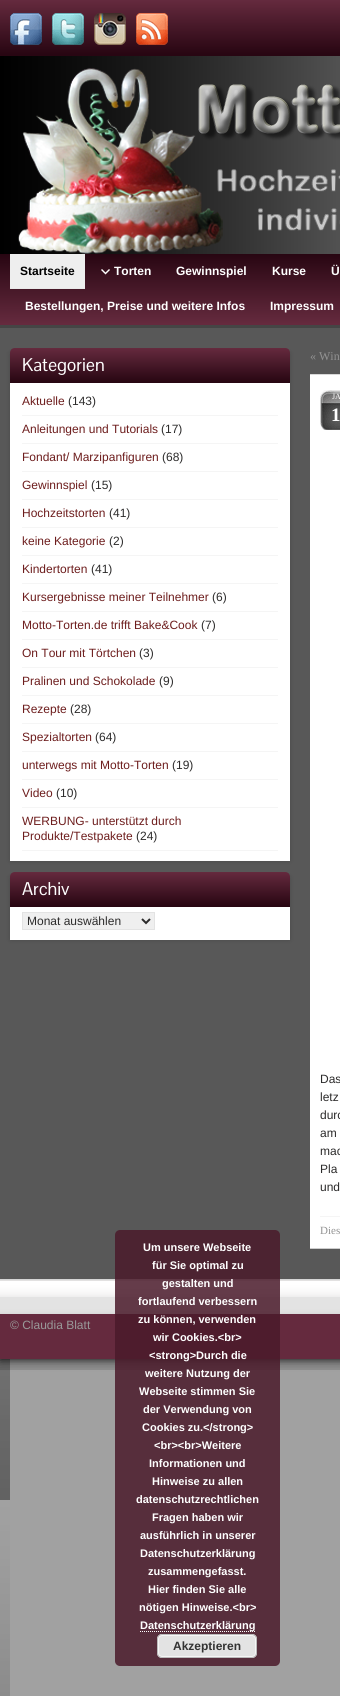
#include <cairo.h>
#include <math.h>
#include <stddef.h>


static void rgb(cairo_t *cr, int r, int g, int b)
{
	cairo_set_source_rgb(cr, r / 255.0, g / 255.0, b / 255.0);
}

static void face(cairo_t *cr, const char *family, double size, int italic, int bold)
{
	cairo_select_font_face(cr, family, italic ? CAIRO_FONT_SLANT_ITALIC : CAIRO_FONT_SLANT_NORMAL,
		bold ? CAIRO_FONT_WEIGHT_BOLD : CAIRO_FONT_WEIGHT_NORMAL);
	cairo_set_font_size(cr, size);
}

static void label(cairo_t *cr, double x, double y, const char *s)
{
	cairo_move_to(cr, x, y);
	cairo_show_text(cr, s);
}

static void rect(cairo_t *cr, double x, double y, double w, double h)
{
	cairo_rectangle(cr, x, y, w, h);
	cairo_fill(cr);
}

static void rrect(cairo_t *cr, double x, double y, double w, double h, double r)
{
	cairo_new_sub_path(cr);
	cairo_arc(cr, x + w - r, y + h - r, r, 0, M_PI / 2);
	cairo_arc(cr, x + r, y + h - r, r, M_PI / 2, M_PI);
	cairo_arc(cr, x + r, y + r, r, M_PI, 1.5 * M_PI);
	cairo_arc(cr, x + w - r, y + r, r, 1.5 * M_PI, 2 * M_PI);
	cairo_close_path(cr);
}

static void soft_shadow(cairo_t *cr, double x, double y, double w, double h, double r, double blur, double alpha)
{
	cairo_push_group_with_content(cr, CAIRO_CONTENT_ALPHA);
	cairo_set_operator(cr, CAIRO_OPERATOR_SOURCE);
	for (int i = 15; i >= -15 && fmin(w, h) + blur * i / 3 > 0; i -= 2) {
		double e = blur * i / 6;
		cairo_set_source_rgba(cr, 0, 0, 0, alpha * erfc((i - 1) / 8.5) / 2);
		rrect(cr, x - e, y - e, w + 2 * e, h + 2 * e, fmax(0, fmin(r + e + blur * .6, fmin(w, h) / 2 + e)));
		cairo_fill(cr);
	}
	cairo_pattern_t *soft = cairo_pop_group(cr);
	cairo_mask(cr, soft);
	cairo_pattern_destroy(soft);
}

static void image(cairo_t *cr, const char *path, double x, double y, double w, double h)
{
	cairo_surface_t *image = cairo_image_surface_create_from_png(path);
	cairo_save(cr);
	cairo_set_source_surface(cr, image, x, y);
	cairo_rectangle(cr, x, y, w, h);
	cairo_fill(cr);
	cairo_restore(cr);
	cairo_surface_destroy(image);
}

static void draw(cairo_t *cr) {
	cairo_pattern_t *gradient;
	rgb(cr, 161, 161, 161);
	cairo_paint(cr);
	image(cr, "image0.png", 0, 1359, 10, 337);
	image(cr, "image1.png", 0, 1359, 340, 11);
	rgb(cr, 0, 0, 0);
	soft_shadow(cr, 0, 0, 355, 1359, 0, 5, 1);
	gradient = cairo_pattern_create_linear(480, 0, 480, 54);
	cairo_pattern_add_color_stop_rgba(gradient, 0, 0.396, 0.165, 0.243, 1);
	cairo_pattern_add_color_stop_rgba(gradient, 1, 0.157, 0.024, 0.071, 1);
	cairo_set_source(cr, gradient);
	cairo_pattern_destroy(gradient);
	rect(cr, 0, 0, 340, 54);
	image(cr, "image2.png", 10, 13, 32, 32);
	image(cr, "image3.png", 52, 13, 32, 32);
	image(cr, "image4.png", 94, 13, 32, 32);
	image(cr, "image5.png", 136, 13, 32, 32);
	rgb(cr, 40, 6, 18);
	rect(cr, 0, 54, 340, 2);
	image(cr, "image6.png", 0, 56, 340, 198);
	gradient = cairo_pattern_create_linear(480, 254, 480, 324);
	cairo_pattern_add_color_stop_rgba(gradient, 0, 0.157, 0.024, 0.071, 1);
	cairo_pattern_add_color_stop_rgba(gradient, 1, 0.396, 0.165, 0.243, 1);
	cairo_set_source(cr, gradient);
	cairo_pattern_destroy(gradient);
	rect(cr, 0, 254, 340, 70);
	rgb(cr, 101, 42, 62);
	rect(cr, 0, 324, 340, 1);
	rgb(cr, 238, 238, 238);
	rect(cr, 10, 254, 75, 34);
	rgb(cr, 233, 233, 233);
	rect(cr, 10, 288, 75, 1);
	face(cr, "Liberation Sans", 12, 0, 1);
	rgb(cr, 0, 0, 0);
	label(cr, 20, 275, "Startseite");
	image(cr, "image7.png", 101, 269, 9, 6);
	rgb(cr, 255, 255, 255);
	label(cr, 114, 275, "Torten");
	label(cr, 176, 275, "Gewinnspiel");
	label(cr, 272, 275, "Kurse");
	label(cr, 331, 275, "Ü");
	label(cr, 25, 310, "Bestellungen, Preise und weitere Infos");
	label(cr, 270, 310, "Impressum");
	rgb(cr, 69, 69, 69);
	rect(cr, 0, 325, 340, 3);
	rgb(cr, 88, 88, 88);
	rect(cr, 0, 328, 340, 951);
	rgb(cr, 0, 0, 0);
	soft_shadow(cr, 10, 353, 280, 508, 0, 2.5, 0.15);
	rgb(cr, 255, 255, 255);
	rect(cr, 10, 383, 280, 478);
	gradient = cairo_pattern_create_linear(150, 348, 150, 382);
	cairo_pattern_add_color_stop_rgba(gradient, 0, 0.396, 0.165, 0.243, 1);
	cairo_pattern_add_color_stop_rgba(gradient, 1, 0.157, 0.024, 0.071, 1);
	cairo_set_source(cr, gradient);
	cairo_pattern_destroy(gradient);
	cairo_new_path(cr);
	cairo_move_to(cr, 15, 348);
	cairo_line_to(cr, 285, 348);
	cairo_curve_to(cr, 288, 348, 290, 350, 290, 353);
	cairo_line_to(cr, 290, 382);
	cairo_line_to(cr, 10, 382);
	cairo_line_to(cr, 10, 353);
	cairo_curve_to(cr, 10, 350, 12, 348, 15, 348);
	cairo_close_path(cr);
	cairo_fill(cr);
	rgb(cr, 40, 6, 18);
	rect(cr, 10, 382, 280, 1);
	face(cr, "Pontano Sans", 18, 0, 0);
	rgb(cr, 255, 255, 255);
	label(cr, 22, 371, "Kategorien");
	rgb(cr, 245, 245, 245);
	rect(cr, 22, 415, 256, 1);
	face(cr, "Liberation Sans", 12, 0, 0);
	rgb(cr, 109, 29, 29);
	label(cr, 22, 405, "Aktuelle");
	rgb(cr, 44, 43, 43);
	label(cr, 68, 405, "(143)");
	rgb(cr, 245, 245, 245);
	rect(cr, 22, 443, 256, 1);
	rgb(cr, 109, 29, 29);
	label(cr, 22, 433, "Anleitungen und Tutorials");
	rgb(cr, 44, 43, 43);
	label(cr, 161, 433, "(17)");
	rgb(cr, 245, 245, 245);
	rect(cr, 22, 471, 256, 1);
	rgb(cr, 109, 29, 29);
	label(cr, 22, 461, "Fondant/ Marzipanfiguren");
	rgb(cr, 44, 43, 43);
	label(cr, 162, 461, "(68)");
	rgb(cr, 245, 245, 245);
	rect(cr, 22, 499, 256, 1);
	rgb(cr, 109, 29, 29);
	label(cr, 22, 489, "Gewinnspiel");
	rgb(cr, 44, 43, 43);
	label(cr, 91, 489, "(15)");
	rgb(cr, 245, 245, 245);
	rect(cr, 22, 527, 256, 1);
	rgb(cr, 109, 29, 29);
	label(cr, 22, 517, "Hochzeitstorten");
	rgb(cr, 44, 43, 43);
	label(cr, 109, 517, "(41)");
	rgb(cr, 245, 245, 245);
	rect(cr, 22, 555, 256, 1);
	rgb(cr, 109, 29, 29);
	label(cr, 22, 545, "keine Kategorie");
	rgb(cr, 44, 43, 43);
	label(cr, 109, 545, "(2)");
	rgb(cr, 245, 245, 245);
	rect(cr, 22, 583, 256, 1);
	rgb(cr, 109, 29, 29);
	label(cr, 22, 573, "Kindertorten");
	rgb(cr, 44, 43, 43);
	label(cr, 91, 573, "(41)");
	rgb(cr, 245, 245, 245);
	rect(cr, 22, 611, 256, 1);
	rgb(cr, 109, 29, 29);
	label(cr, 22, 601, "Kursergebnisse meiner Teilnehmer");
	rgb(cr, 44, 43, 43);
	label(cr, 212, 601, "(6)");
	rgb(cr, 245, 245, 245);
	rect(cr, 22, 639, 256, 1);
	rgb(cr, 109, 29, 29);
	label(cr, 22, 629, "Motto-Torten.de trifft Bake&Cook");
	rgb(cr, 44, 43, 43);
	label(cr, 201, 629, "(7)");
	rgb(cr, 245, 245, 245);
	rect(cr, 22, 667, 256, 1);
	rgb(cr, 109, 29, 29);
	label(cr, 22, 657, "On Tour mit Törtchen");
	rgb(cr, 44, 43, 43);
	label(cr, 139, 657, "(3)");
	rgb(cr, 245, 245, 245);
	rect(cr, 22, 695, 256, 1);
	rgb(cr, 109, 29, 29);
	label(cr, 22, 685, "Pralinen und Schokolade");
	rgb(cr, 44, 43, 43);
	label(cr, 159, 685, "(9)");
	rgb(cr, 245, 245, 245);
	rect(cr, 22, 723, 256, 1);
	rgb(cr, 109, 29, 29);
	label(cr, 22, 713, "Rezepte");
	rgb(cr, 44, 43, 43);
	label(cr, 70, 713, "(28)");
	rgb(cr, 245, 245, 245);
	rect(cr, 22, 751, 256, 1);
	rgb(cr, 109, 29, 29);
	label(cr, 22, 741, "Spezialtorten");
	rgb(cr, 44, 43, 43);
	label(cr, 95, 741, "(64)");
	rgb(cr, 245, 245, 245);
	rect(cr, 22, 779, 256, 1);
	rgb(cr, 109, 29, 29);
	label(cr, 22, 769, "unterwegs mit Motto-Torten");
	rgb(cr, 44, 43, 43);
	label(cr, 172, 769, "(19)");
	rgb(cr, 245, 245, 245);
	rect(cr, 22, 807, 256, 1);
	rgb(cr, 109, 29, 29);
	label(cr, 22, 797, "Video");
	rgb(cr, 44, 43, 43);
	label(cr, 56, 797, "(10)");
	rgb(cr, 245, 245, 245);
	rect(cr, 22, 850, 256, 1);
	rgb(cr, 109, 29, 29);
	label(cr, 22, 825, "WERBUNG- unterstützt durch");
	label(cr, 22, 840, "Produkte/Testpakete");
	rgb(cr, 44, 43, 43);
	label(cr, 136, 840, "(24)");
	rgb(cr, 0, 0, 0);
	soft_shadow(cr, 10, 877, 280, 63, 0, 2.5, 0.15);
	rgb(cr, 255, 255, 255);
	rect(cr, 10, 907, 280, 33);
	gradient = cairo_pattern_create_linear(150, 872, 150, 906);
	cairo_pattern_add_color_stop_rgba(gradient, 0, 0.396, 0.165, 0.243, 1);
	cairo_pattern_add_color_stop_rgba(gradient, 1, 0.157, 0.024, 0.071, 1);
	cairo_set_source(cr, gradient);
	cairo_pattern_destroy(gradient);
	cairo_new_path(cr);
	cairo_move_to(cr, 15, 872);
	cairo_line_to(cr, 285, 872);
	cairo_curve_to(cr, 288, 872, 290, 874, 290, 877);
	cairo_line_to(cr, 290, 906);
	cairo_line_to(cr, 10, 906);
	cairo_line_to(cr, 10, 877);
	cairo_curve_to(cr, 10, 874, 12, 872, 15, 872);
	cairo_close_path(cr);
	cairo_fill(cr);
	rgb(cr, 40, 6, 18);
	rect(cr, 10, 906, 280, 1);
	face(cr, "Pontano Sans", 18, 0, 0);
	rgb(cr, 255, 255, 255);
	label(cr, 22, 895, "Archiv");
	rgb(cr, 239, 239, 239);
	cairo_rectangle(cr, 22.5, 912.5, 132, 17);
	cairo_fill_preserve(cr);
	rgb(cr, 227, 227, 227);
	cairo_set_line_width(cr, 1);
	cairo_stroke(cr);
	cairo_new_path(cr);
	cairo_move_to(cr, 142, 919);
	cairo_line_to(cr, 146, 923);
	cairo_line_to(cr, 150, 919);
	rgb(cr, 44, 43, 43);
	cairo_set_line_width(cr, 2);
	cairo_stroke(cr);
	face(cr, "Liberation Sans", 12, 0, 0);
	label(cr, 27, 925, "Monat auswählen");
	face(cr, "Liberation Serif", 12, 0, 0);
	rgb(cr, 146, 146, 146);
	label(cr, 310, 360, "« Win");
	rgb(cr, 255, 255, 255);
	rect(cr, 310, 375, 30, 873);
	rgb(cr, 216, 216, 216);
	rect(cr, 310, 374, 30, 1);
	rgb(cr, 204, 204, 204);
	rect(cr, 310, 1248, 30, 1);
	image(cr, "image8.png", 320, 390, 20, 40);
	face(cr, "Liberation Serif", 8, 0, 0);
	rgb(cr, 255, 255, 255);
	label(cr, 332, 399, "JA");
	face(cr, "Liberation Serif", 19, 0, 1);
	label(cr, 331, 421, "1");
	face(cr, "Liberation Sans", 12, 0, 0);
	rgb(cr, 44, 43, 43);
	label(cr, 320, 1083, "Das");
	label(cr, 320, 1101, "letz");
	label(cr, 320, 1119, "durc");
	label(cr, 320, 1137, "am");
	label(cr, 320, 1155, "mac");
	label(cr, 320, 1173, "Pla");
	label(cr, 320, 1191, "und");
	rgb(cr, 245, 245, 245);
	rect(cr, 320, 1216, 20, 1);
	face(cr, "Liberation Serif", 11, 0, 0);
	rgb(cr, 146, 146, 146);
	label(cr, 320, 1234, "Dies");
	rgb(cr, 101, 42, 62);
	rect(cr, 0, 1314, 340, 45);
	image(cr, "image9.png", 0, 1280, 340, 34);
	rgb(cr, 213, 213, 213);
	rect(cr, 0, 1279, 340, 1);
	face(cr, "Liberation Sans", 12, 0, 0);
	rgb(cr, 153, 153, 153);
	label(cr, 10, 1329, "© Claudia Blatt");
	cairo_set_source_rgba(cr, 0.29, 0.102, 0.169, 0.85);
	rrect(cr, 115, 1230, 165, 436, 5);
	cairo_fill(cr);
	face(cr, "Liberation Sans", 11, 0, 1);
	rgb(cr, 255, 255, 255);
	label(cr, 143, 1251, "Um unsere Webseite");
	label(cr, 152, 1269, "für Sie optimal zu");
	label(cr, 162, 1287, "gestalten und");
	label(cr, 138, 1305, "fortlaufend verbessern");
	label(cr, 138, 1323, "zu können, verwenden");
	label(cr, 153, 1341, "wir Cookies.<br>");
	label(cr, 149, 1359, "<strong>Durch die");
	label(cr, 145, 1377, "weitere Nutzung der");
	label(cr, 139, 1395, "Webseite stimmen Sie");
	label(cr, 143, 1413, "der Verwendung von");
	label(cr, 142, 1431, "Cookies zu.</strong>");
	label(cr, 154, 1449, "<br><br>Weitere");
	label(cr, 149, 1467, "Informationen und");
	label(cr, 152, 1485, "Hinweise zu allen");
	label(cr, 136, 1503, "datenschutzrechtlichen");
	label(cr, 152, 1521, "Fragen haben wir");
	label(cr, 140, 1539, "ausführlich in unserer");
	label(cr, 140, 1557, "Datenschutzerklärung");
	label(cr, 148, 1575, "zusammengefasst.");
	label(cr, 148, 1593, "Hier finden Sie alle");
	label(cr, 139, 1611, "nötigen Hinweise.<br>");
	cairo_new_path(cr);
	cairo_move_to(cr, 140, 1631.5);
	cairo_line_to(cr, 255, 1631.5);
	cairo_set_line_width(cr, 1);
	cairo_set_dash(cr, (double[]){1, 1}, 2, 0);
	cairo_stroke(cr);
	label(cr, 140, 1629, "Datenschutzerklärung");
	rgb(cr, 227, 227, 227);
	rrect(cr, 157, 1634, 100, 24, 5);
	cairo_fill(cr);
	rrect(cr, 158.5, 1635.5, 97, 21, 3.5);
	rgb(cr, 246, 246, 246);
	cairo_set_dash(cr, NULL, 0, 0);
	cairo_stroke(cr);
	rrect(cr, 157.5, 1634.5, 99, 23, 4.5);
	rgb(cr, 187, 187, 187);
	cairo_stroke(cr);
	face(cr, "Liberation Sans", 12, 0, 1);
	rgb(cr, 51, 51, 51);
	label(cr, 173, 1650, "Akzeptieren");
}

int main(void) {
	cairo_surface_t *surface = cairo_image_surface_create(CAIRO_FORMAT_RGB24, 340, 1696);
	cairo_t *cr = cairo_create(surface);
	cairo_font_options_t *options = cairo_font_options_create();
	cairo_font_options_set_hint_metrics(options, CAIRO_HINT_METRICS_OFF);
	cairo_font_options_set_hint_style(options, CAIRO_HINT_STYLE_NONE);
	cairo_set_font_options(cr, options);
	cairo_set_miter_limit(cr, 4);
	draw(cr);
	cairo_surface_write_to_png(surface, "render.png");
	cairo_font_options_destroy(options);
	cairo_destroy(cr);
	cairo_surface_destroy(surface);
	return 0;
}
